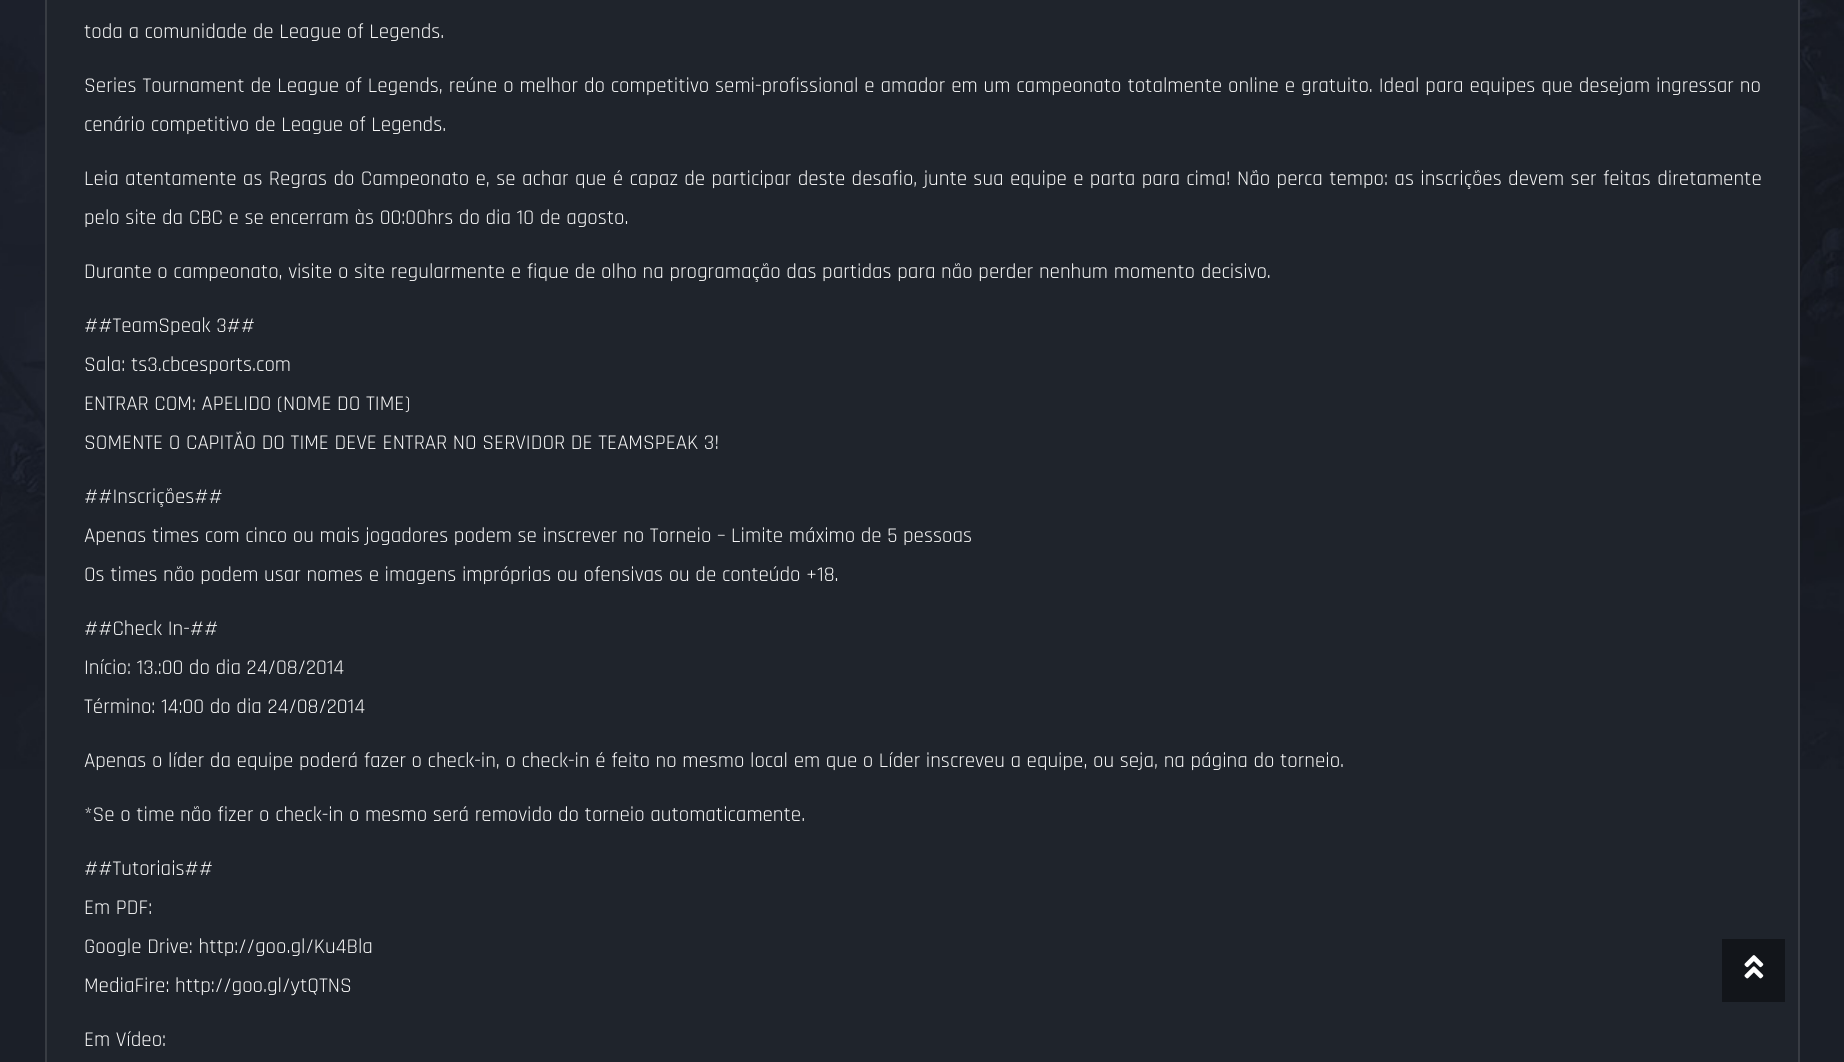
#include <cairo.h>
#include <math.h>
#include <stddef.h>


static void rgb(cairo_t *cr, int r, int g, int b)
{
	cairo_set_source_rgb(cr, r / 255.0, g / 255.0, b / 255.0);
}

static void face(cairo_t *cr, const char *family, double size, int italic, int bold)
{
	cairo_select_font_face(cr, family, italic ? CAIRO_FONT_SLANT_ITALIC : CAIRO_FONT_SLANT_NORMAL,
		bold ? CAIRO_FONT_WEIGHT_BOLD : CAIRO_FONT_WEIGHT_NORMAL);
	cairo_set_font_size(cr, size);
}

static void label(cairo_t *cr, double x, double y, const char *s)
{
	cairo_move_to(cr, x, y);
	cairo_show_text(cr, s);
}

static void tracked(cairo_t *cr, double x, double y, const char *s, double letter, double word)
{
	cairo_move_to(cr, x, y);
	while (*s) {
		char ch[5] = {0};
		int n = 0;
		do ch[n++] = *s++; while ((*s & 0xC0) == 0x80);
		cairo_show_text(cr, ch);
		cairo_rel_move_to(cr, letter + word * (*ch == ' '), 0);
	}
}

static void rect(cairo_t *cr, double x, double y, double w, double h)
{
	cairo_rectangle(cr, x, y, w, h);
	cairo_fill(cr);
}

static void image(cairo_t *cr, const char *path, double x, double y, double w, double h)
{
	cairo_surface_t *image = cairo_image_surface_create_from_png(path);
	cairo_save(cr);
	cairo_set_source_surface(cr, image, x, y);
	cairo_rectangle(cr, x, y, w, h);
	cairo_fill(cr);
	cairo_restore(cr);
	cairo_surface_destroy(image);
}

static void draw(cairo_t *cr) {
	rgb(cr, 27, 31, 40);
	cairo_paint(cr);
	image(cr, "image0.png", 0, 0, 1844, 769);
	rgb(cr, 31, 36, 44);
	cairo_rectangle(cr, 46, -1, 1753, 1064);
	cairo_fill_preserve(cr);
	rgb(cr, 56, 60, 67);
	cairo_stroke(cr);
	face(cr, "Rajdhani", 21, 0, 0);
	rgb(cr, 247, 247, 247);
	label(cr, 84, 38, "toda a comunidade de League of Legends.");
	tracked(cr, 84, 92, "Series Tournament de League of Legends, reúne o melhor do competitivo semi-profissional e amador em um campeonato totalmente online e gratuito. Ideal para equipes que desejam ingressar no", 0, 0.3);
	label(cr, 84, 131, "cenário competitivo de League of Legends.");
	tracked(cr, 84, 185, "Leia atentamente as Regras do Campeonato e, se achar que é capaz de participar deste desafio, junte sua equipe e parta para cima! Não perca tempo: as inscrições devem ser feitas diretamente", 0, 0.75);
	label(cr, 84, 224, "pelo site da CBC e se encerram às 00:00hrs do dia 10 de agosto.");
	label(cr, 84, 278, "Durante o campeonato, visite o site regularmente e fique de olho na programação das partidas para não perder nenhum momento decisivo.");
	label(cr, 84, 332, "##TeamSpeak 3##");
	label(cr, 84, 371, "Sala: ts3.cbcesports.com");
	label(cr, 84, 410, "ENTRAR COM: APELIDO (NOME DO TIME)");
	label(cr, 84, 449, "SOMENTE O CAPITÃO DO TIME DEVE ENTRAR NO SERVIDOR DE TEAMSPEAK 3!");
	label(cr, 84, 503, "##Inscrições##");
	label(cr, 84, 542, "Apenas times com cinco ou mais jogadores podem se inscrever no Torneio – Limite máximo de 5 pessoas");
	label(cr, 84, 581, "Os times não podem usar nomes e imagens impróprias ou ofensivas ou de conteúdo +18.");
	label(cr, 84, 635, "##Check In-##");
	label(cr, 84, 674, "Início: 13.:00 do dia 24/08/2014");
	label(cr, 84, 713, "Término: 14:00 do dia 24/08/2014");
	label(cr, 84, 767, "Apenas o líder da equipe poderá fazer o check-in, o check-in é feito no mesmo local em que o Líder inscreveu a equipe, ou seja, na página do torneio.");
	label(cr, 84, 821, "*Se o time não fizer o check-in o mesmo será removido do torneio automaticamente.");
	label(cr, 84, 875, "##Tutoriais##");
	label(cr, 84, 914, "Em PDF:");
	label(cr, 84, 953, "Google Drive: http://goo.gl/Ku4Bla");
	label(cr, 84, 992, "MediaFire: http://goo.gl/ytQTNS");
	label(cr, 84, 1046, "Em Vídeo:");
	rgb(cr, 18, 21, 26);
	rect(cr, 1722, 939, 63, 63);
	image(cr, "image1.png", 1744, 955, 20, 24);
}

int main(void) {
	cairo_surface_t *surface = cairo_image_surface_create(CAIRO_FORMAT_RGB24, 1844, 1062);
	cairo_t *cr = cairo_create(surface);
	cairo_font_options_t *options = cairo_font_options_create();
	cairo_font_options_set_hint_metrics(options, CAIRO_HINT_METRICS_OFF);
	cairo_font_options_set_hint_style(options, CAIRO_HINT_STYLE_NONE);
	cairo_set_font_options(cr, options);
	cairo_set_miter_limit(cr, 4);
	draw(cr);
	cairo_surface_write_to_png(surface, "render.png");
	cairo_font_options_destroy(options);
	cairo_destroy(cr);
	cairo_surface_destroy(surface);
	return 0;
}
